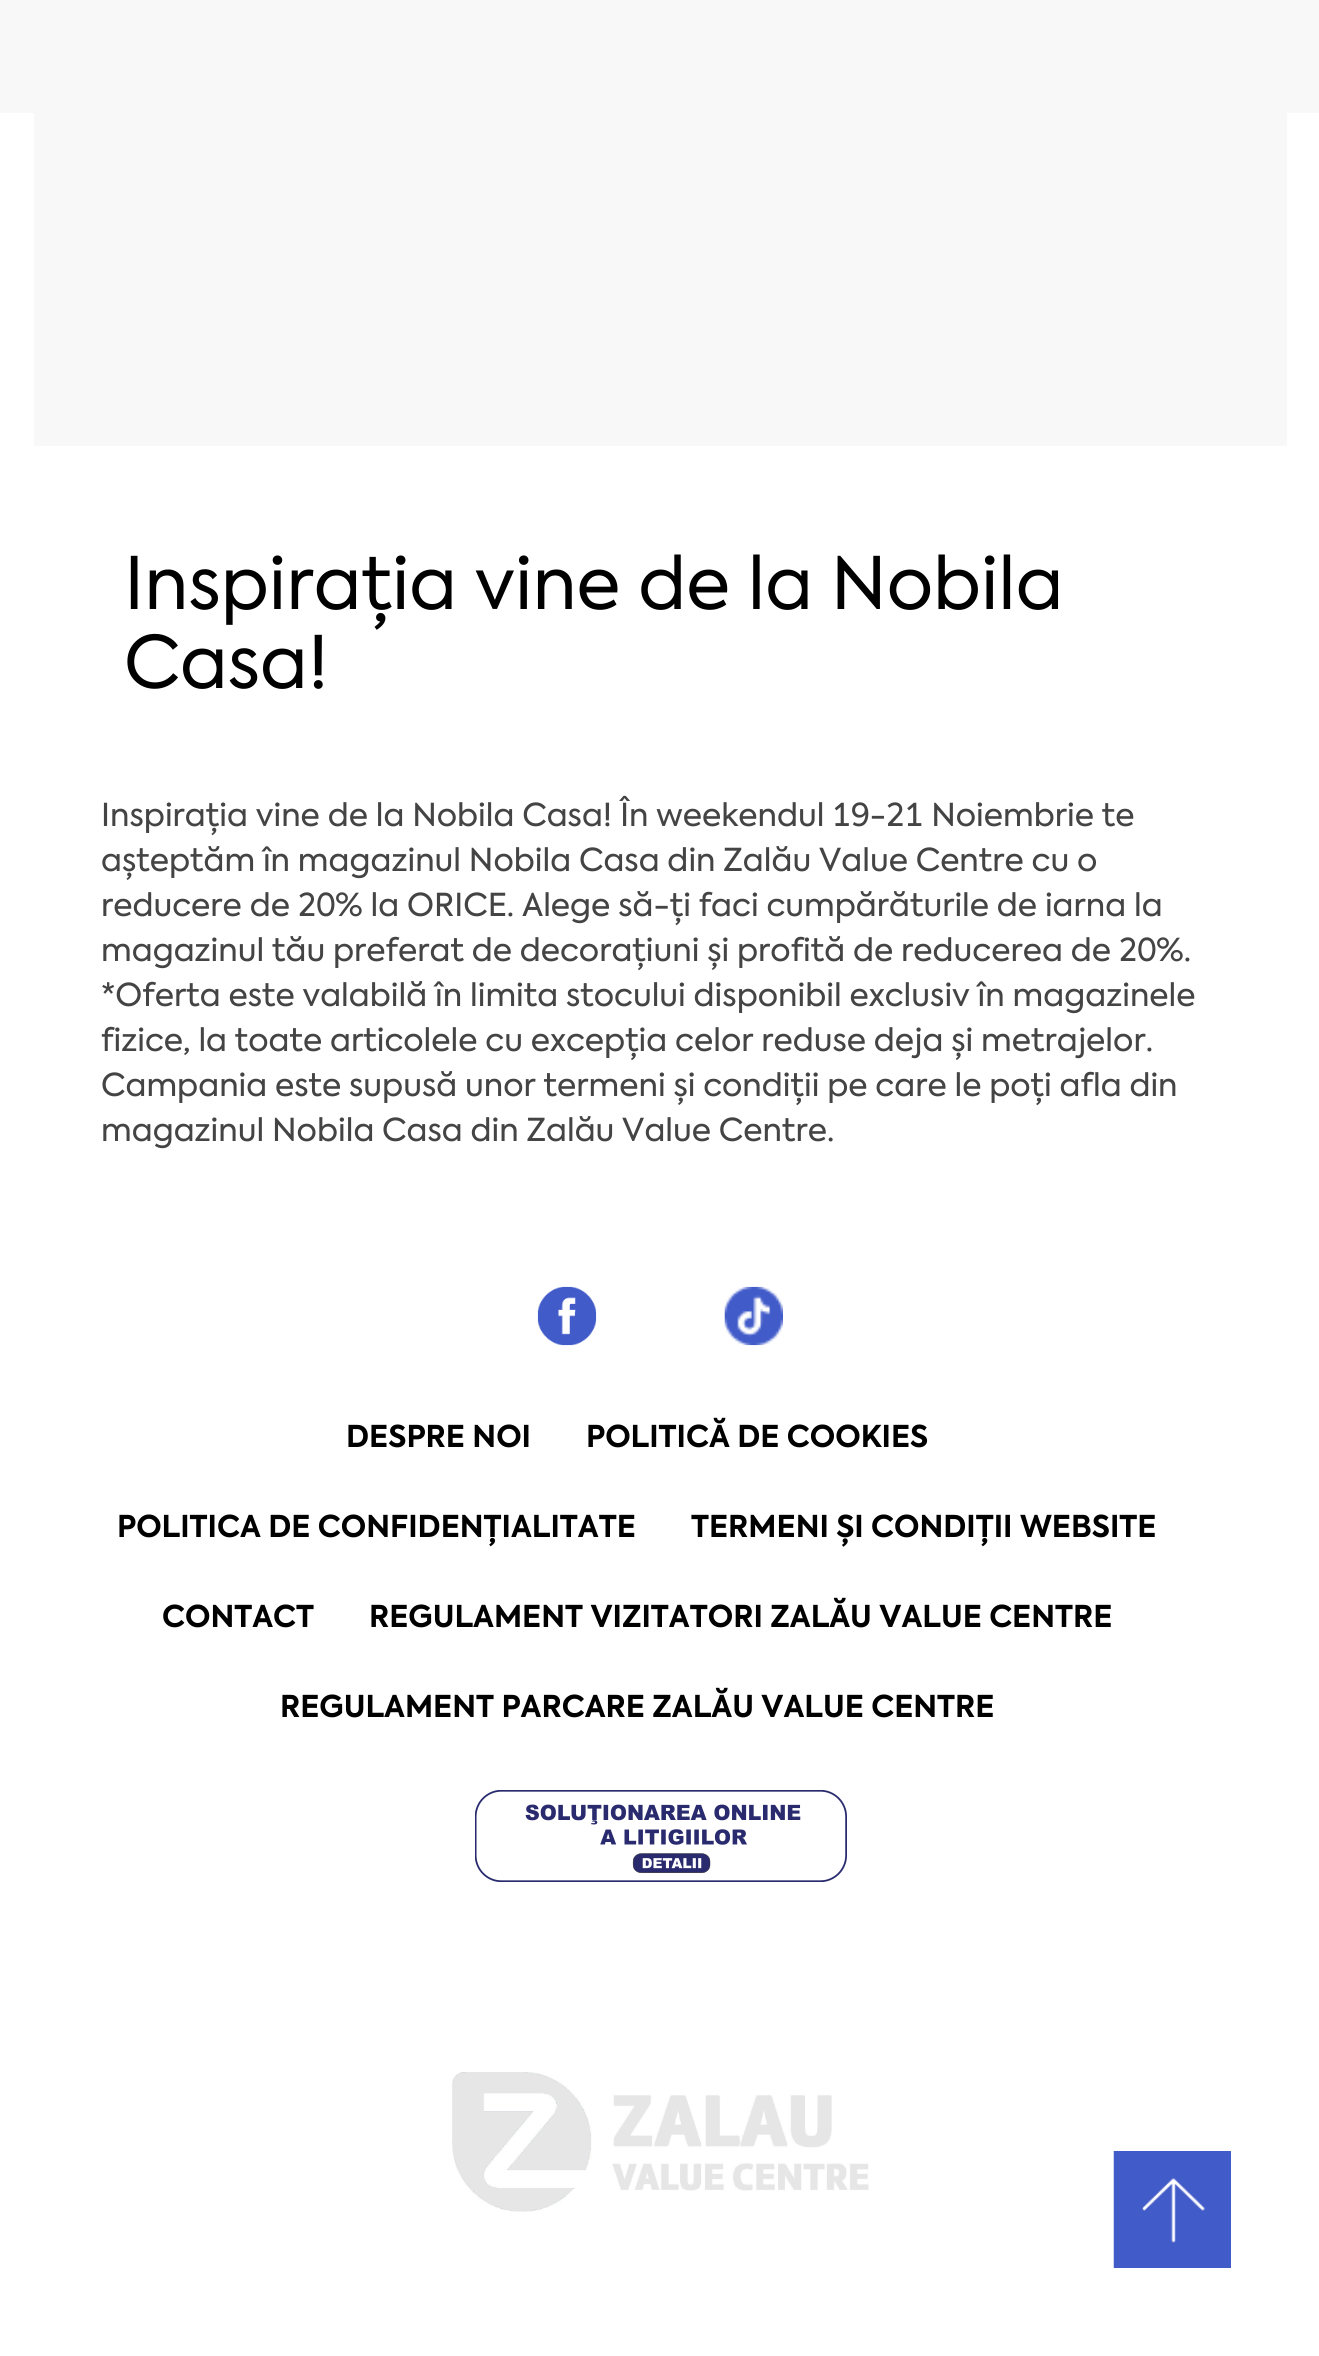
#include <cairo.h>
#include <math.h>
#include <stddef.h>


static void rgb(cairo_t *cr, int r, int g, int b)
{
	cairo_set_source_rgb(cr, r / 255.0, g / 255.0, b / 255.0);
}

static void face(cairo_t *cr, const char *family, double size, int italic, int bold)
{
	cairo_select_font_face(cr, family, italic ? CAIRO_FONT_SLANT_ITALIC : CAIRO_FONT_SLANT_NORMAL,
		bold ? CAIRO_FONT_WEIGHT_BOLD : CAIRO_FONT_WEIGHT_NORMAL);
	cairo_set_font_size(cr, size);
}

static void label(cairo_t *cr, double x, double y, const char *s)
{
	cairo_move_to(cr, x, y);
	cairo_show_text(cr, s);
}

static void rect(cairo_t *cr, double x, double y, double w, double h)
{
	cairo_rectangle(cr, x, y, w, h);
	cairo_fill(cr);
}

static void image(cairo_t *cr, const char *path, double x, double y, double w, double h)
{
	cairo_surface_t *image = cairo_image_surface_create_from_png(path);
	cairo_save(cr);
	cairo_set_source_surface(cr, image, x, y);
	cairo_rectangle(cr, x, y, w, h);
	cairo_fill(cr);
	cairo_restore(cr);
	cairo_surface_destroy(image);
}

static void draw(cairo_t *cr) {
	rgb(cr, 255, 255, 255);
	cairo_paint(cr);
	rgb(cr, 248, 248, 248);
	rect(cr, 0, 0, 1319, 113);
	rect(cr, 34, 113, 1253, 333);
	face(cr, "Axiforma", 72, 0, 0);
	rgb(cr, 0, 0, 0);
	label(cr, 124, 609, "Inspirația vine de la Nobila");
	label(cr, 124, 688, "Casa!");
	face(cr, "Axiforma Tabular", 31.5, 0, 0);
	rgb(cr, 68, 68, 68);
	label(cr, 101, 826, "Inspirația vine de la Nobila Casa! În weekendul 19-21 Noiembrie te");
	face(cr, "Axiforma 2", 31.5, 0, 0);
	label(cr, 101, 871, "așteptăm în magazinul Nobila Casa din Zalău Value Centre cu o");
	face(cr, "Axiforma Tabular", 31.5, 0, 0);
	label(cr, 101, 916, "reducere de 20% la ORICE. Alege să-ți faci cumpărăturile de iarna la");
	label(cr, 101, 961, "magazinul tău preferat de decorațiuni și profită de reducerea de 20%.");
	face(cr, "Axiforma 2", 31.5, 0, 0);
	label(cr, 101, 1006, "*Oferta este valabilă în limita stocului disponibil exclusiv în magazinele");
	label(cr, 101, 1051, "fizice, la toate articolele cu excepția celor reduse deja și metrajelor.");
	label(cr, 101, 1096, "Campania este supusă unor termeni și condiții pe care le poți afla din");
	label(cr, 101, 1141, "magazinul Nobila Casa din Zalău Value Centre.");
	image(cr, "image0.png", 537, 1286, 60, 60);
	image(cr, "image1.png", 724, 1286, 59, 60);
	rgb(cr, 65, 91, 201);
	rect(cr, 1114, 2151, 117, 117);
	image(cr, "image2.png", 1113, 2151, 92, 117);
	face(cr, "Axiforma", 30, 0, 1);
	rgb(cr, 0, 0, 0);
	label(cr, 346, 1447, "DESPRE NOI");
	label(cr, 586, 1447, "POLITICĂ DE COOKIES");
	label(cr, 117, 1537, "POLITICA DE CONFIDENȚIALITATE");
	label(cr, 691, 1537, "TERMENI ȘI CONDIȚII WEBSITE");
	label(cr, 162, 1627, "CONTACT");
	label(cr, 369, 1627, "REGULAMENT VIZITATORI ZALĂU VALUE CENTRE");
	label(cr, 280, 1717, "REGULAMENT PARCARE ZALĂU VALUE CENTRE");
	image(cr, "image3.png", 475, 1790, 372, 92);
	image(cr, "image4.png", 452, 2072, 417, 140);
}

int main(void) {
	cairo_surface_t *surface = cairo_image_surface_create(CAIRO_FORMAT_RGB24, 1319, 2356);
	cairo_t *cr = cairo_create(surface);
	cairo_font_options_t *options = cairo_font_options_create();
	cairo_font_options_set_hint_metrics(options, CAIRO_HINT_METRICS_OFF);
	cairo_font_options_set_hint_style(options, CAIRO_HINT_STYLE_NONE);
	cairo_set_font_options(cr, options);
	cairo_set_miter_limit(cr, 4);
	draw(cr);
	cairo_surface_write_to_png(surface, "render.png");
	cairo_font_options_destroy(options);
	cairo_destroy(cr);
	cairo_surface_destroy(surface);
	return 0;
}
